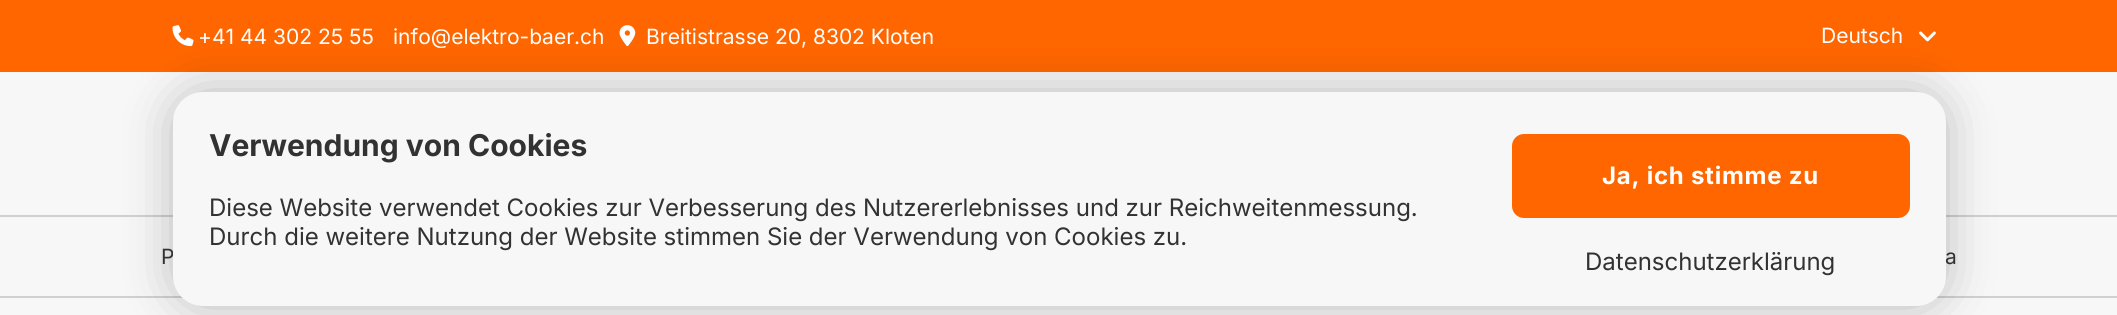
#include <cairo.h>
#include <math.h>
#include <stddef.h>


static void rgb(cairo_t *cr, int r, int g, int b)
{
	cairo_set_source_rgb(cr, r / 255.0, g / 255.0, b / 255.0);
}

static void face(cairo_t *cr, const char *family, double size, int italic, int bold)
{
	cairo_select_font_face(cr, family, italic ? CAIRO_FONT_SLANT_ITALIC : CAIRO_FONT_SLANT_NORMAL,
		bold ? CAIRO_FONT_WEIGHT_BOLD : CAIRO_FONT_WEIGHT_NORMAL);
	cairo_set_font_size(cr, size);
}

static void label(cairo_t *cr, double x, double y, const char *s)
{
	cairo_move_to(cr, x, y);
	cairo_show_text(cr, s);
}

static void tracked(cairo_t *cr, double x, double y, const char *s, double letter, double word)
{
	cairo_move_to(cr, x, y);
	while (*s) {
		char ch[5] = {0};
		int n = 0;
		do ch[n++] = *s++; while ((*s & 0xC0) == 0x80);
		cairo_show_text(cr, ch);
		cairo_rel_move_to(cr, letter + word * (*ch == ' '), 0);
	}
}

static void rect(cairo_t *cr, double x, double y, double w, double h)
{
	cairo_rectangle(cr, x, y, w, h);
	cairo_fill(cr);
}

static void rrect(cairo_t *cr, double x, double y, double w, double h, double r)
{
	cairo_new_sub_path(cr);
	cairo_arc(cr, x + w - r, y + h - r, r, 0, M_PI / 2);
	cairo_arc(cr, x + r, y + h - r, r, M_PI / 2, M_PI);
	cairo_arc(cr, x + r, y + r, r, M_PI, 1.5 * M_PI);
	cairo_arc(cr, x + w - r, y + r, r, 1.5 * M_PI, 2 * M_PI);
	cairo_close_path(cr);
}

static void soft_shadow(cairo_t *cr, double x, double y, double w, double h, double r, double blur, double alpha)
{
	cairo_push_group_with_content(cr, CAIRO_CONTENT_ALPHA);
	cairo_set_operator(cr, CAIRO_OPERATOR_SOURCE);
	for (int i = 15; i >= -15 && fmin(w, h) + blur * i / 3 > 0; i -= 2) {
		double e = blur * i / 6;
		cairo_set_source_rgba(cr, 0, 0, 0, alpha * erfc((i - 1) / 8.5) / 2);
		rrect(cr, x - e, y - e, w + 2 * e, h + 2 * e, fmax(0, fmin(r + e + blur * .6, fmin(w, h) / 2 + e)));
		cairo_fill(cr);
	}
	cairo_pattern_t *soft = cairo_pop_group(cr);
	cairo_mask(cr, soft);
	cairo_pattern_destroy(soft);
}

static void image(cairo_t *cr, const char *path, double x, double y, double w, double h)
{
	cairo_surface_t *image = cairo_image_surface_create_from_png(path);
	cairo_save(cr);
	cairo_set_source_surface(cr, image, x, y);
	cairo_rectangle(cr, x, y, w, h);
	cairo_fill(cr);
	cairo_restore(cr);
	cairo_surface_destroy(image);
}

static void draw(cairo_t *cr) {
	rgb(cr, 247, 247, 247);
	cairo_paint(cr);
	rgb(cr, 255, 102, 0);
	rect(cr, 0, 0, 2117, 72);
	image(cr, "image0.png", 172, 25, 22, 22);
	face(cr, "Inter", 21, 0, 0);
	rgb(cr, 255, 255, 255);
	label(cr, 198, 44, "+41 44 302 25 55");
	label(cr, 393, 44, "info@elektro-baer.ch");
	image(cr, "image1.png", 619, 25, 17, 22);
	label(cr, 646, 44, "Breitistrasse 20, 8302 Kloten");
	label(cr, 1821, 43, "Deutsch");
	image(cr, "image2.png", 1919, 31, 17, 11);
	rgb(cr, 208, 208, 208);
	rect(cr, 0, 215, 2117, 2);
	rect(cr, 0, 296, 2117, 2);
	rgb(cr, 0, 0, 0);
	soft_shadow(cr, 173, 92, 1773, 214, 30, 24, 0.25);
	rgb(cr, 50, 50, 50);
	label(cr, 161, 264, "P");
	rgb(cr, 247, 247, 247);
	rrect(cr, 173, 92, 1773, 214, 30);
	cairo_fill(cr);
	face(cr, "Inter", 30, 0, 1);
	rgb(cr, 50, 50, 50);
	label(cr, 209, 156, "Verwendung von Cookies");
	face(cr, "Inter", 24, 0, 0);
	label(cr, 209, 216, "Diese Website verwendet Cookies zur Verbesserung des Nutzererlebnisses und zur Reichweitenmessung.");
	label(cr, 209, 245, "Durch die weitere Nutzung der Website stimmen Sie der Verwendung von Cookies zu.");
	rgb(cr, 255, 102, 0);
	rrect(cr, 1512, 134, 398, 84, 12);
	cairo_fill(cr);
	face(cr, "Inter", 24, 0, 1);
	rgb(cr, 255, 255, 255);
	tracked(cr, 1602, 184, "Ja, ich stimme zu", 0.75, 0);
	face(cr, "Inter", 24, 0, 0);
	rgb(cr, 50, 50, 50);
	label(cr, 1585, 270, "Datenschutzerklärung");
	face(cr, "Inter", 21, 0, 0);
	label(cr, 1945, 264, "a");
}

int main(void) {
	cairo_surface_t *surface = cairo_image_surface_create(CAIRO_FORMAT_RGB24, 2117, 315);
	cairo_t *cr = cairo_create(surface);
	cairo_font_options_t *options = cairo_font_options_create();
	cairo_font_options_set_hint_metrics(options, CAIRO_HINT_METRICS_OFF);
	cairo_font_options_set_hint_style(options, CAIRO_HINT_STYLE_NONE);
	cairo_set_font_options(cr, options);
	cairo_set_miter_limit(cr, 4);
	draw(cr);
	cairo_surface_write_to_png(surface, "render.png");
	cairo_font_options_destroy(options);
	cairo_destroy(cr);
	cairo_surface_destroy(surface);
	return 0;
}
